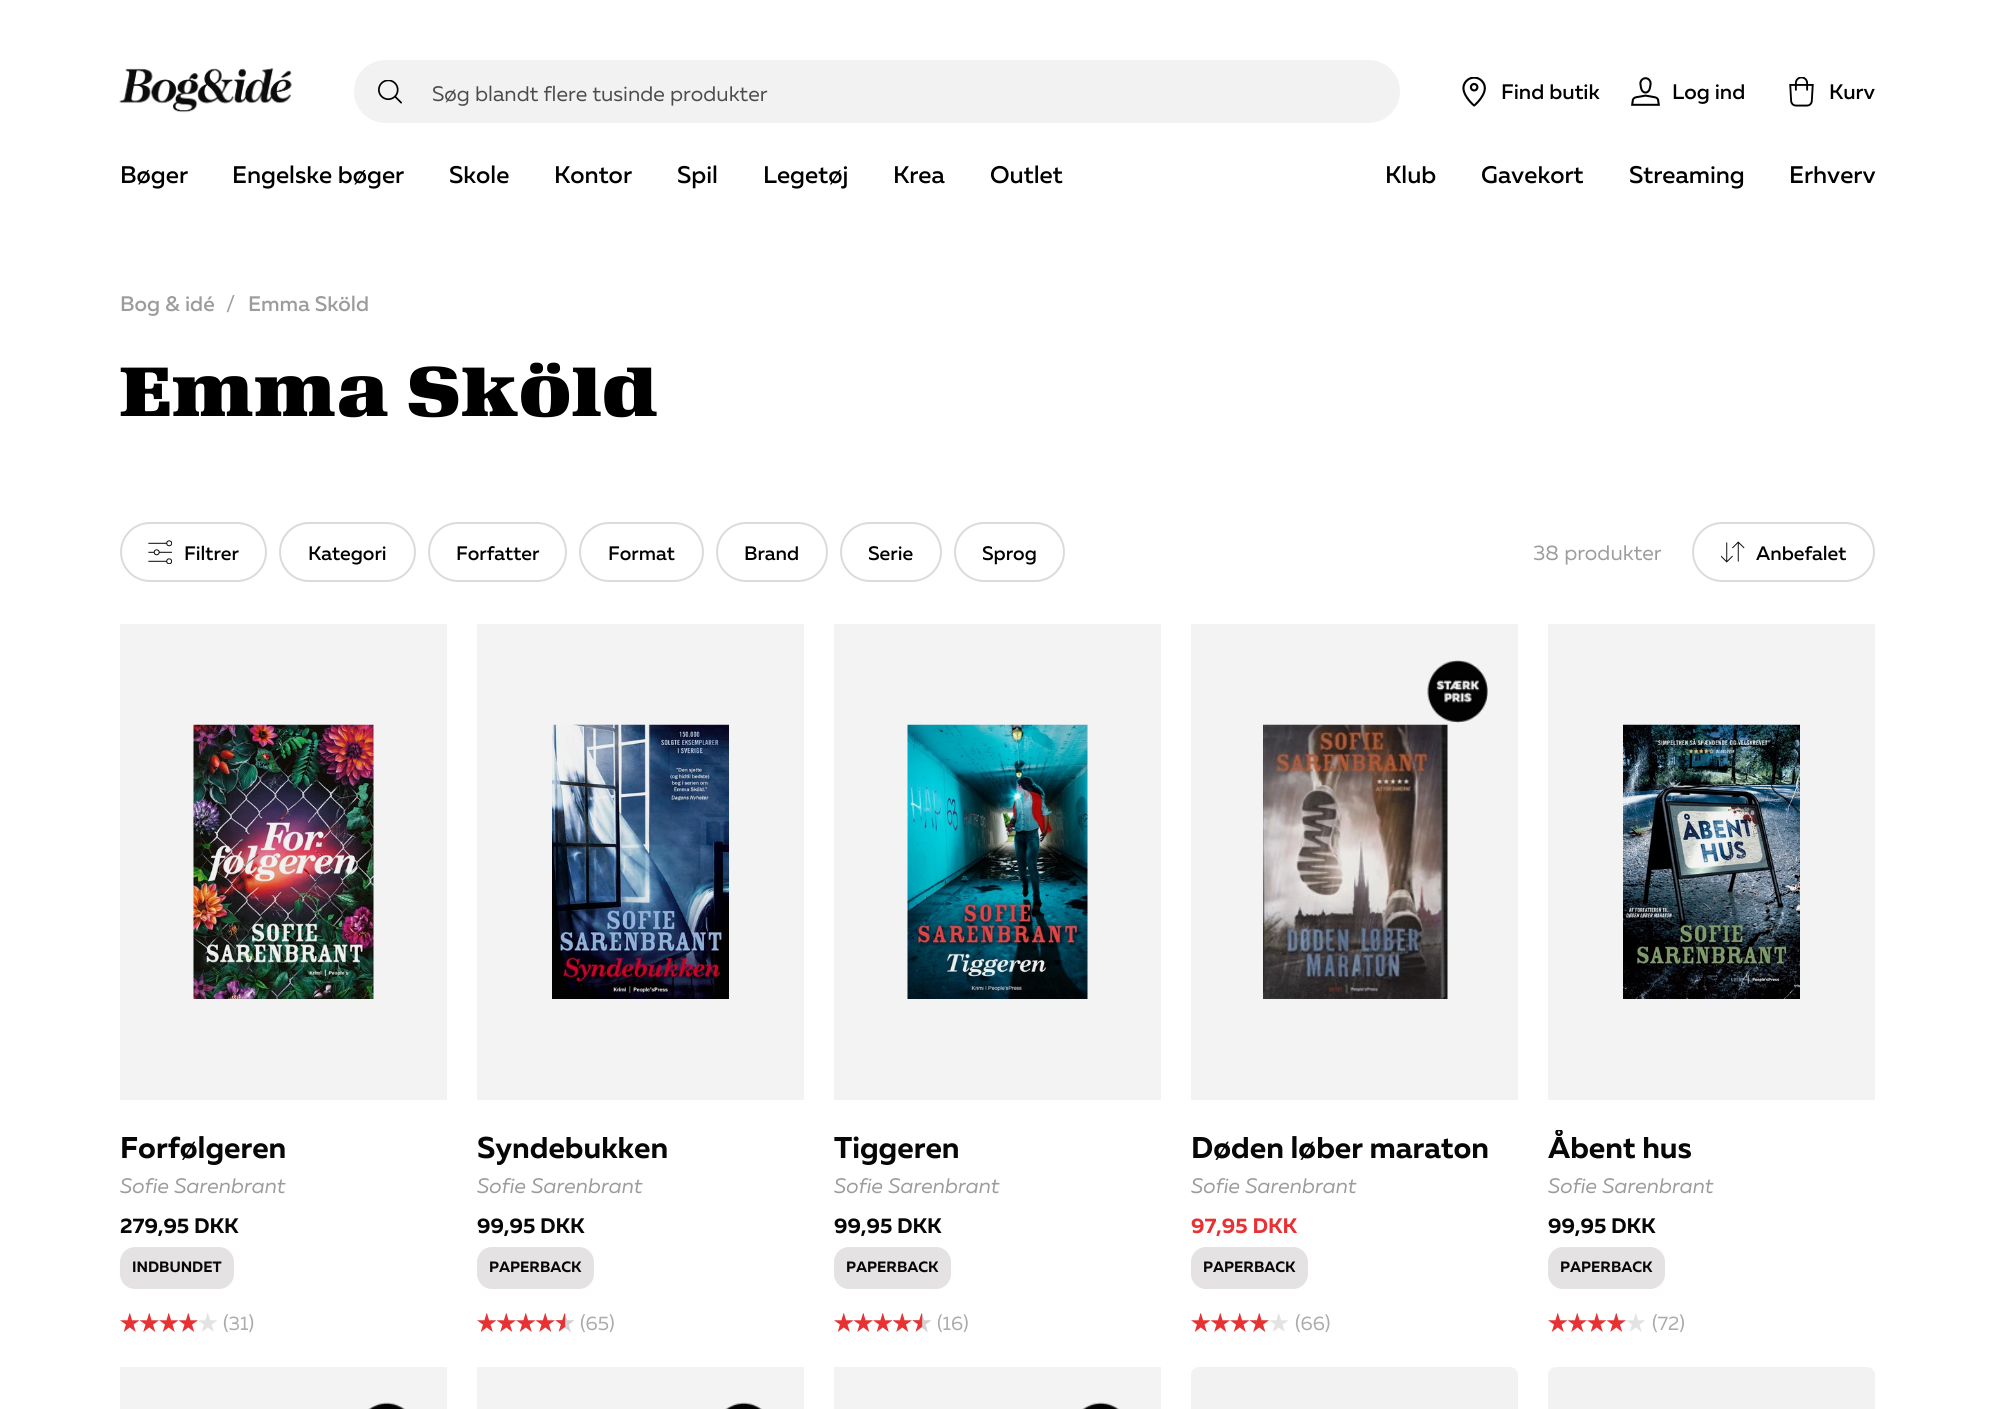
#include <cairo.h>
#include <math.h>
#include <stddef.h>


static void rgb(cairo_t *cr, int r, int g, int b)
{
	cairo_set_source_rgb(cr, r / 255.0, g / 255.0, b / 255.0);
}

static void face(cairo_t *cr, const char *family, double size, int italic, int bold)
{
	cairo_select_font_face(cr, family, italic ? CAIRO_FONT_SLANT_ITALIC : CAIRO_FONT_SLANT_NORMAL,
		bold ? CAIRO_FONT_WEIGHT_BOLD : CAIRO_FONT_WEIGHT_NORMAL);
	cairo_set_font_size(cr, size);
}

static void label(cairo_t *cr, double x, double y, const char *s)
{
	cairo_move_to(cr, x, y);
	cairo_show_text(cr, s);
}

static void tracked(cairo_t *cr, double x, double y, const char *s, double letter, double word)
{
	cairo_move_to(cr, x, y);
	while (*s) {
		char ch[5] = {0};
		int n = 0;
		do ch[n++] = *s++; while ((*s & 0xC0) == 0x80);
		cairo_show_text(cr, ch);
		cairo_rel_move_to(cr, letter + word * (*ch == ' '), 0);
	}
}

static void rect(cairo_t *cr, double x, double y, double w, double h)
{
	cairo_rectangle(cr, x, y, w, h);
	cairo_fill(cr);
}

static void rrect(cairo_t *cr, double x, double y, double w, double h, double r)
{
	cairo_new_sub_path(cr);
	cairo_arc(cr, x + w - r, y + h - r, r, 0, M_PI / 2);
	cairo_arc(cr, x + r, y + h - r, r, M_PI / 2, M_PI);
	cairo_arc(cr, x + r, y + r, r, M_PI, 1.5 * M_PI);
	cairo_arc(cr, x + w - r, y + r, r, 1.5 * M_PI, 2 * M_PI);
	cairo_close_path(cr);
}

static void image(cairo_t *cr, const char *path, double x, double y, double w, double h)
{
	cairo_surface_t *image = cairo_image_surface_create_from_png(path);
	cairo_save(cr);
	cairo_set_source_surface(cr, image, x, y);
	cairo_rectangle(cr, x, y, w, h);
	cairo_fill(cr);
	cairo_restore(cr);
	cairo_surface_destroy(image);
}

static void draw(cairo_t *cr) {
	rgb(cr, 255, 255, 255);
	cairo_paint(cr);
	image(cr, "image0.png", 119, 68, 173, 45);
	rgb(cr, 242, 242, 242);
	rrect(cr, 355.5, 61.5, 1043, 60, 30);
	cairo_fill_preserve(cr);
	cairo_set_line_width(cr, 3);
	cairo_stroke(cr);
	image(cr, "image1.png", 378, 80, 24, 24);
	face(cr, "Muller", 21, 0, 0);
	rgb(cr, 77, 76, 73);
	label(cr, 432, 101, "Søg blandt flere tusinde produkter");
	image(cr, "image2.png", 1462, 77, 24, 30);
	face(cr, "Muller Medium", 21, 0, 0);
	rgb(cr, 0, 0, 0);
	label(cr, 1501, 99, "Find butik");
	image(cr, "image3.png", 1631, 77, 29, 29);
	label(cr, 1672, 99, "Log ind");
	image(cr, "image4.png", 1789, 77, 25, 30);
	label(cr, 1829, 99, "Kurv");
	face(cr, "Muller Medium", 24, 0, 0);
	label(cr, 120, 183, "Bøger");
	label(cr, 232, 183, "Engelske bøger");
	label(cr, 449, 183, "Skole");
	label(cr, 554, 183, "Kontor");
	label(cr, 677, 183, "Spil");
	label(cr, 763, 183, "Legetøj");
	label(cr, 893, 183, "Krea");
	label(cr, 990, 183, "Outlet");
	label(cr, 1385, 183, "Klub");
	label(cr, 1481, 183, "Gavekort");
	label(cr, 1629, 183, "Streaming");
	label(cr, 1789, 183, "Erhverv");
	face(cr, "Muller Medium", 21, 0, 0);
	rgb(cr, 157, 156, 156);
	label(cr, 120, 311, "Bog & idé");
	label(cr, 226, 311, "/");
	label(cr, 248, 311, "Emma Sköld");
	face(cr, "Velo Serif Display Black", 75, 0, 0);
	rgb(cr, 0, 0, 0);
	tracked(cr, 120, 416, "Emma Sköld", 1.25, 0);
	rrect(cr, 121, 523, 145, 58, 29);
	rgb(cr, 219, 219, 219);
	cairo_set_line_width(cr, 2);
	cairo_stroke(cr);
	image(cr, "image5.png", 148, 540, 25, 24);
	face(cr, "Muller Medium", 19.5, 0, 0);
	rgb(cr, 0, 0, 0);
	label(cr, 184, 560, "Filtrer");
	rrect(cr, 280, 523, 135, 58, 29);
	rgb(cr, 219, 219, 219);
	cairo_stroke(cr);
	rgb(cr, 0, 0, 0);
	label(cr, 308, 560, "Kategori");
	rrect(cr, 429, 523, 137, 58, 29);
	rgb(cr, 219, 219, 219);
	cairo_stroke(cr);
	rgb(cr, 0, 0, 0);
	label(cr, 456, 560, "Forfatter");
	rrect(cr, 580, 523, 123, 58, 29);
	rgb(cr, 219, 219, 219);
	cairo_stroke(cr);
	rgb(cr, 0, 0, 0);
	label(cr, 608, 560, "Format");
	rrect(cr, 717, 523, 110, 58, 29);
	rgb(cr, 219, 219, 219);
	cairo_stroke(cr);
	rgb(cr, 0, 0, 0);
	label(cr, 744, 560, "Brand");
	rrect(cr, 841, 523, 100, 58, 29);
	rgb(cr, 219, 219, 219);
	cairo_stroke(cr);
	rgb(cr, 0, 0, 0);
	label(cr, 868, 560, "Serie");
	rrect(cr, 955, 523, 109, 58, 29);
	rgb(cr, 219, 219, 219);
	cairo_stroke(cr);
	rgb(cr, 0, 0, 0);
	label(cr, 982, 560, "Sprog");
	face(cr, "Muller", 21, 0, 0);
	rgb(cr, 157, 156, 156);
	label(cr, 1533, 560, "38 produkter");
	rrect(cr, 1693, 523, 181, 58, 29);
	rgb(cr, 219, 219, 219);
	cairo_stroke(cr);
	image(cr, "image6.png", 1721, 541, 24, 22);
	face(cr, "Muller Medium", 19.5, 0, 0);
	rgb(cr, 0, 0, 0);
	label(cr, 1756, 560, "Anbefalet");
	image(cr, "image7.png", 193, 724, 181, 275);
	cairo_set_source_rgba(cr, 0, 0, 0, 0.05);
	rect(cr, 120, 624, 327, 476);
	face(cr, "Muller", 30, 0, 1);
	rgb(cr, 8, 7, 7);
	label(cr, 120, 1158, "Forfølgeren");
	face(cr, "Muller", 21, 1, 0);
	rgb(cr, 157, 156, 156);
	label(cr, 120, 1193, "Sofie Sarenbrant");
	face(cr, "Muller", 21, 0, 1);
	rgb(cr, 8, 7, 7);
	label(cr, 120, 1233, "279,95 DKK");
	rgb(cr, 228, 226, 227);
	rrect(cr, 120, 1247, 114, 42, 15);
	cairo_fill(cr);
	face(cr, "Muller", 15, 0, 1);
	rgb(cr, 8, 7, 7);
	label(cr, 132, 1272, "INDBUNDET");
	image(cr, "image8.png", 120, 1313, 20, 19);
	image(cr, "image9.png", 140, 1313, 19, 19);
	image(cr, "image8.png", 159, 1313, 20, 19);
	image(cr, "image9.png", 179, 1313, 19, 19);
	image(cr, "image10.png", 198, 1313, 19, 19);
	face(cr, "Muller", 19.5, 0, 0);
	rgb(cr, 169, 171, 172);
	label(cr, 223, 1330, "(31)");
	image(cr, "image11.png", 552, 724, 177, 275);
	cairo_set_source_rgba(cr, 0, 0, 0, 0.05);
	rect(cr, 477, 624, 327, 476);
	face(cr, "Muller", 30, 0, 1);
	rgb(cr, 8, 7, 7);
	label(cr, 477, 1158, "Syndebukken");
	face(cr, "Muller", 21, 1, 0);
	rgb(cr, 157, 156, 156);
	label(cr, 477, 1193, "Sofie Sarenbrant");
	face(cr, "Muller", 21, 0, 1);
	rgb(cr, 8, 7, 7);
	label(cr, 477, 1233, "99,95 DKK");
	rgb(cr, 228, 226, 227);
	rrect(cr, 477, 1247, 117, 42, 15);
	cairo_fill(cr);
	face(cr, "Muller", 15, 0, 1);
	rgb(cr, 8, 7, 7);
	label(cr, 489, 1272, "PAPERBACK");
	image(cr, "image8.png", 477, 1313, 20, 19);
	image(cr, "image9.png", 497, 1313, 19, 19);
	image(cr, "image8.png", 516, 1313, 20, 19);
	image(cr, "image9.png", 536, 1313, 19, 19);
	image(cr, "image10.png", 555, 1313, 19, 19);
	image(cr, "image12.png", 555, 1313, 20, 19);
	face(cr, "Muller", 19.5, 0, 0);
	rgb(cr, 169, 171, 172);
	label(cr, 580, 1330, "(65)");
	image(cr, "image13.png", 907, 724, 181, 275);
	cairo_set_source_rgba(cr, 0, 0, 0, 0.05);
	rect(cr, 834, 624, 327, 476);
	face(cr, "Muller", 30, 0, 1);
	rgb(cr, 8, 7, 7);
	label(cr, 834, 1158, "Tiggeren");
	face(cr, "Muller", 21, 1, 0);
	rgb(cr, 157, 156, 156);
	label(cr, 834, 1193, "Sofie Sarenbrant");
	face(cr, "Muller", 21, 0, 1);
	rgb(cr, 8, 7, 7);
	label(cr, 834, 1233, "99,95 DKK");
	rgb(cr, 228, 226, 227);
	rrect(cr, 834, 1247, 117, 42, 15);
	cairo_fill(cr);
	face(cr, "Muller", 15, 0, 1);
	rgb(cr, 8, 7, 7);
	label(cr, 846, 1272, "PAPERBACK");
	image(cr, "image8.png", 834, 1313, 20, 19);
	image(cr, "image9.png", 854, 1313, 19, 19);
	image(cr, "image8.png", 873, 1313, 20, 19);
	image(cr, "image9.png", 893, 1313, 19, 19);
	image(cr, "image10.png", 912, 1313, 19, 19);
	image(cr, "image12.png", 912, 1313, 20, 19);
	face(cr, "Muller", 19.5, 0, 0);
	rgb(cr, 169, 171, 172);
	label(cr, 937, 1330, "(16)");
	image(cr, "image14.png", 1427, 660, 61, 63);
	image(cr, "image15.png", 1263, 724, 185, 275);
	cairo_set_source_rgba(cr, 0, 0, 0, 0.05);
	rect(cr, 1191, 624, 327, 476);
	face(cr, "Muller", 30, 0, 1);
	rgb(cr, 8, 7, 7);
	label(cr, 1191, 1158, "Døden løber maraton");
	face(cr, "Muller", 21, 1, 0);
	rgb(cr, 157, 156, 156);
	label(cr, 1191, 1193, "Sofie Sarenbrant");
	face(cr, "Muller", 21, 0, 1);
	rgb(cr, 231, 49, 50);
	label(cr, 1191, 1233, "97,95 DKK");
	rgb(cr, 228, 226, 227);
	rrect(cr, 1191, 1247, 117, 42, 15);
	cairo_fill(cr);
	face(cr, "Muller", 15, 0, 1);
	rgb(cr, 8, 7, 7);
	label(cr, 1203, 1272, "PAPERBACK");
	image(cr, "image8.png", 1191, 1313, 20, 19);
	image(cr, "image9.png", 1211, 1313, 19, 19);
	image(cr, "image8.png", 1230, 1313, 20, 19);
	image(cr, "image16.png", 1250, 1313, 19, 19);
	image(cr, "image17.png", 1250, 1313, 19, 19);
	image(cr, "image10.png", 1269, 1313, 19, 19);
	face(cr, "Muller", 19.5, 0, 0);
	rgb(cr, 169, 171, 172);
	label(cr, 1295, 1330, "(66)");
	image(cr, "image18.png", 1623, 724, 177, 275);
	cairo_set_source_rgba(cr, 0, 0, 0, 0.05);
	rect(cr, 1548, 624, 327, 476);
	cairo_save(cr);
	cairo_rectangle(cr, 1548, 1130, 327, 36);
	cairo_clip(cr);
	face(cr, "Muller", 30, 0, 1);
	rgb(cr, 8, 7, 7);
	label(cr, 1548, 1158, "Åbent hus");
	cairo_restore(cr);
	face(cr, "Muller", 21, 1, 0);
	rgb(cr, 157, 156, 156);
	label(cr, 1548, 1193, "Sofie Sarenbrant");
	face(cr, "Muller", 21, 0, 1);
	rgb(cr, 8, 7, 7);
	label(cr, 1548, 1233, "99,95 DKK");
	rgb(cr, 228, 226, 227);
	rrect(cr, 1548, 1247, 117, 42, 15);
	cairo_fill(cr);
	face(cr, "Muller", 15, 0, 1);
	rgb(cr, 8, 7, 7);
	label(cr, 1560, 1272, "PAPERBACK");
	image(cr, "image8.png", 1548, 1313, 20, 19);
	image(cr, "image9.png", 1568, 1313, 19, 19);
	image(cr, "image8.png", 1587, 1313, 20, 19);
	image(cr, "image9.png", 1607, 1313, 19, 19);
	image(cr, "image10.png", 1626, 1313, 19, 19);
	face(cr, "Muller", 19.5, 0, 0);
	rgb(cr, 169, 171, 172);
	label(cr, 1652, 1330, "(72)");
	image(cr, "image19.png", 368, 1402, 37, 7);
	cairo_set_source_rgba(cr, 0, 0, 0, 0.05);
	rect(cr, 120, 1367, 327, 42);
	image(cr, "image20.png", 725, 1402, 37, 7);
	rect(cr, 477, 1367, 327, 42);
	image(cr, "image19.png", 1082, 1402, 37, 7);
	rect(cr, 834, 1367, 327, 42);
	rgb(cr, 242, 242, 242);
	rrect(cr, 1191, 1367, 327, 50, 8);
	cairo_fill(cr);
	rrect(cr, 1548, 1367, 327, 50, 8);
	cairo_fill(cr);
}

int main(void) {
	cairo_surface_t *surface = cairo_image_surface_create(CAIRO_FORMAT_RGB24, 1994, 1409);
	cairo_t *cr = cairo_create(surface);
	cairo_font_options_t *options = cairo_font_options_create();
	cairo_font_options_set_hint_metrics(options, CAIRO_HINT_METRICS_OFF);
	cairo_font_options_set_hint_style(options, CAIRO_HINT_STYLE_NONE);
	cairo_set_font_options(cr, options);
	cairo_set_miter_limit(cr, 4);
	draw(cr);
	cairo_surface_write_to_png(surface, "render.png");
	cairo_font_options_destroy(options);
	cairo_destroy(cr);
	cairo_surface_destroy(surface);
	return 0;
}
